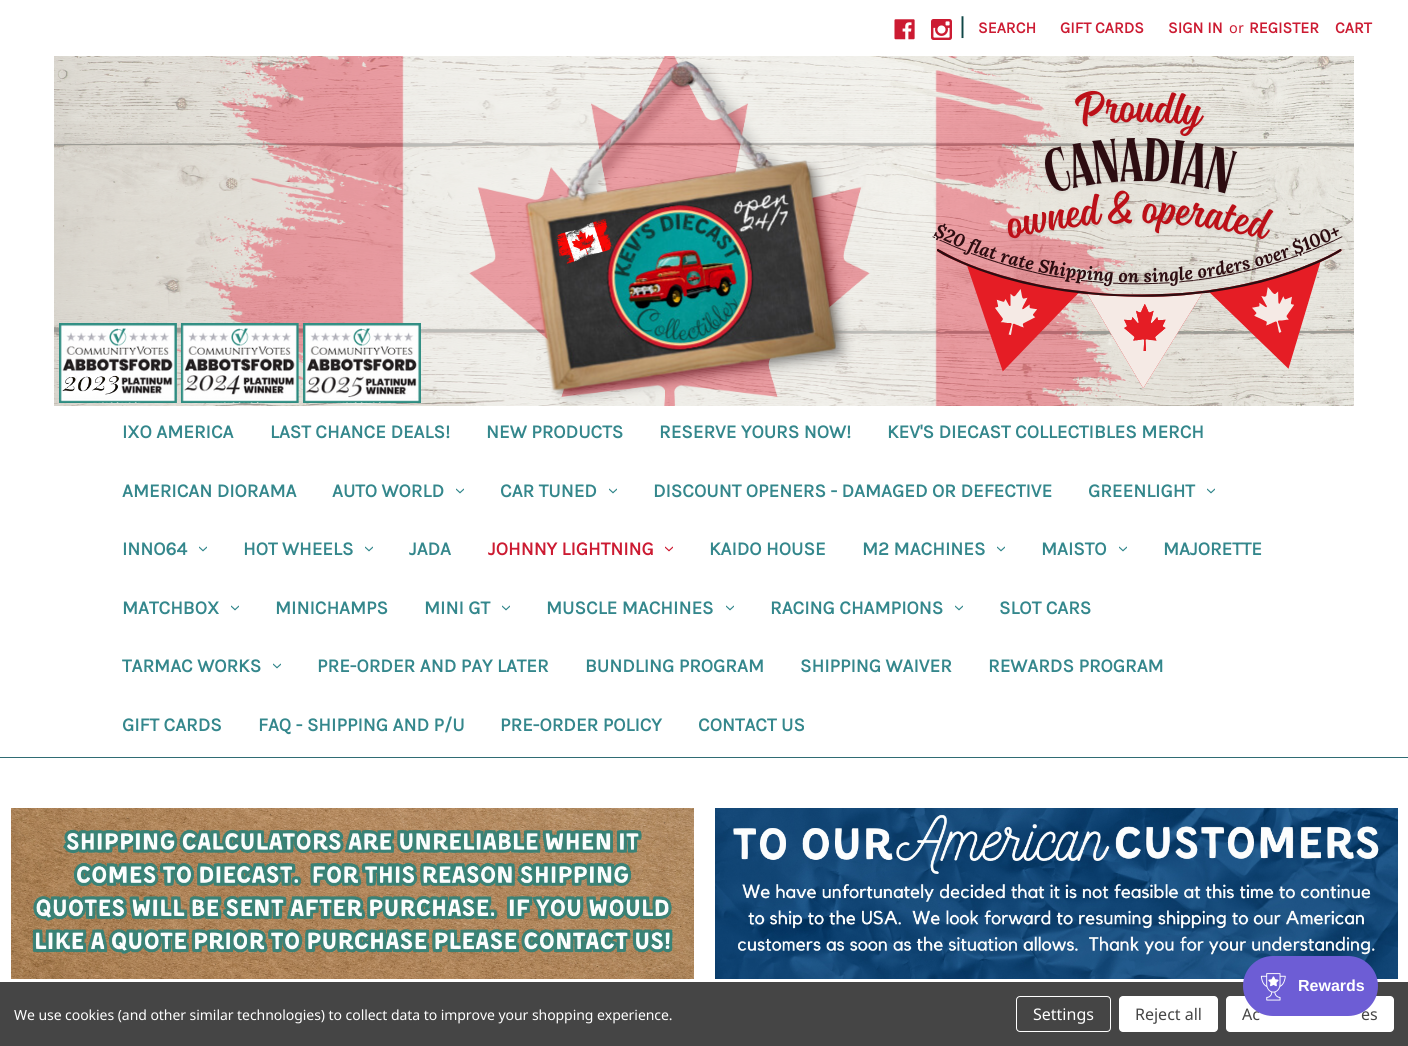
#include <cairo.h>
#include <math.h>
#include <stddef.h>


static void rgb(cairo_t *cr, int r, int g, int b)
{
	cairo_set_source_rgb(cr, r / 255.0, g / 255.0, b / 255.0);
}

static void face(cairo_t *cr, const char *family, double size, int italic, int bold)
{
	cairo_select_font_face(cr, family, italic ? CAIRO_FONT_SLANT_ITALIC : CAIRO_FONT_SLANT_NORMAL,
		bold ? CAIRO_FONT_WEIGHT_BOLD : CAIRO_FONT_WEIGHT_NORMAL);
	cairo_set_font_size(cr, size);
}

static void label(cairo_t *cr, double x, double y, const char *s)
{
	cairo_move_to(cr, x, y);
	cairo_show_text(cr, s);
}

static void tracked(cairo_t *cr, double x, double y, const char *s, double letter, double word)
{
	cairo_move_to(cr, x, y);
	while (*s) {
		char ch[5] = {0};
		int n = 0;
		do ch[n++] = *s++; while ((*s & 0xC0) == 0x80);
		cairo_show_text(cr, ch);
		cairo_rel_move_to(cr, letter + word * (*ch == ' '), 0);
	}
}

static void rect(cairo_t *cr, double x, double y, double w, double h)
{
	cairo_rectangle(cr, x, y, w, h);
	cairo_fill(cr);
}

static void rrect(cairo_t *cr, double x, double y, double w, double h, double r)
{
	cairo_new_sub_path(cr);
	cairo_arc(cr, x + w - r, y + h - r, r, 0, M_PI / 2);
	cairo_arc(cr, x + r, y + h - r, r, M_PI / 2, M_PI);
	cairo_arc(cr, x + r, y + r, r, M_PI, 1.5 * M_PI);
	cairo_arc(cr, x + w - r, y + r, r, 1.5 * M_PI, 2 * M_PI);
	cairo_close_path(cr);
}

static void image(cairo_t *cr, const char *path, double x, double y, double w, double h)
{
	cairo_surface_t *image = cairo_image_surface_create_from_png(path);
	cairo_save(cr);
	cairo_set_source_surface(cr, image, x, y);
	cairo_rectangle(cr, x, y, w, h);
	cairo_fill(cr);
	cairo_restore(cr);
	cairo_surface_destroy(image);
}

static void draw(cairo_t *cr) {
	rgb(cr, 255, 255, 255);
	cairo_paint(cr);
	rgb(cr, 47, 108, 116);
	rect(cr, 0, 757, 1408, 1);
	image(cr, "image0.png", 894, 19, 21, 21);
	image(cr, "image1.png", 931, 19, 21, 21);
	face(cr, "Karla", 25, 0, 0);
	rgb(cr, 15, 71, 71);
	label(cr, 959, 35, "|");
	face(cr, "Karla", 16, 0, 1);
	rgb(cr, 204, 27, 50);
	label(cr, 978, 33, "SEARCH");
	label(cr, 1060, 33, "GIFT CARDS");
	label(cr, 1168, 33, "SIGN IN");
	face(cr, "Karla", 16, 0, 0);
	label(cr, 1229, 33, "or");
	face(cr, "Karla", 16, 0, 1);
	label(cr, 1249, 33, "REGISTER");
	label(cr, 1335, 33, "CART");
	image(cr, "image2.png", 54, 56, 1300, 350);
	face(cr, "Karla", 19, 0, 1);
	rgb(cr, 52, 135, 140);
	label(cr, 122, 438, "IXO AMERICA");
	label(cr, 270, 438, "LAST CHANCE DEALS!");
	label(cr, 486, 438, "NEW PRODUCTS");
	label(cr, 659, 438, "RESERVE YOURS NOW!");
	label(cr, 887, 438, "KEV'S DIECAST COLLECTIBLES MERCH");
	label(cr, 122, 497, "AMERICAN DIORAMA");
	label(cr, 332, 497, "AUTO WORLD");
	image(cr, "image3.png", 456, 488, 8, 6);
	label(cr, 500, 497, "CAR TUNED");
	image(cr, "image3.png", 609, 488, 8, 6);
	label(cr, 653, 497, "DISCOUNT OPENERS - DAMAGED OR DEFECTIVE");
	label(cr, 1088, 497, "GREENLIGHT");
	image(cr, "image3.png", 1207, 488, 8, 6);
	label(cr, 122, 555, "INNO64");
	image(cr, "image3.png", 199, 546, 8, 6);
	label(cr, 243, 555, "HOT WHEELS");
	image(cr, "image3.png", 365, 546, 8, 6);
	label(cr, 409, 555, "JADA");
	rgb(cr, 204, 27, 50);
	label(cr, 488, 555, "JOHNNY LIGHTNING");
	image(cr, "image4.png", 665, 546, 8, 6);
	rgb(cr, 52, 135, 140);
	label(cr, 709, 555, "KAIDO HOUSE");
	label(cr, 862, 555, "M2 MACHINES");
	image(cr, "image3.png", 997, 546, 8, 6);
	label(cr, 1041, 555, "MAISTO");
	image(cr, "image3.png", 1119, 546, 8, 6);
	label(cr, 1163, 555, "MAJORETTE");
	label(cr, 122, 614, "MATCHBOX");
	image(cr, "image3.png", 231, 605, 8, 6);
	label(cr, 275, 614, "MINICHAMPS");
	label(cr, 424, 614, "MINI GT");
	image(cr, "image3.png", 502, 605, 8, 6);
	label(cr, 546, 614, "MUSCLE MACHINES");
	image(cr, "image3.png", 726, 605, 8, 6);
	label(cr, 770, 614, "RACING CHAMPIONS");
	image(cr, "image3.png", 955, 605, 8, 6);
	label(cr, 999, 614, "SLOT CARS");
	label(cr, 122, 672, "TARMAC WORKS");
	image(cr, "image3.png", 273, 663, 8, 6);
	label(cr, 317, 672, "PRE-ORDER AND PAY LATER");
	label(cr, 585, 672, "BUNDLING PROGRAM");
	label(cr, 800, 672, "SHIPPING WAIVER");
	label(cr, 988, 672, "REWARDS PROGRAM");
	label(cr, 122, 731, "GIFT CARDS");
	label(cr, 258, 731, "FAQ - SHIPPING AND P/U");
	label(cr, 500, 731, "PRE-ORDER POLICY");
	label(cr, 698, 731, "CONTACT US");
	image(cr, "image5.png", 11, 808, 683, 171);
	image(cr, "image6.png", 715, 808, 683, 171);
	rgb(cr, 69, 69, 69);
	rect(cr, 0, 982, 1408, 64);
	rgb(cr, 255, 255, 255);
	rrect(cr, 1226, 996, 168, 36, 4);
	cairo_fill(cr);
	face(cr, "Noto Sans", 16, 0, 0);
	rgb(cr, 69, 69, 69);
	label(cr, 1242, 1020, "Ac");
	label(cr, 1361, 1020, "es");
	rgb(cr, 109, 93, 213);
	rrect(cr, 1243, 956, 135, 60, 30);
	cairo_fill(cr);
	image(cr, "image7.png", 1260, 973, 26, 28);
	face(cr, "Liberation Sans", 16, 0, 1);
	rgb(cr, 255, 255, 255);
	label(cr, 1298, 991, "Rewards");
	face(cr, "Noto Sans", 14, 0, 0);
	tracked(cr, 14, 1020, "We use cookies (and other similar technologies) to collect data to improve your shopping experience.", -0.05, 0);
	rrect(cr, 1016.5, 996.5, 94, 35, 3.5);
	cairo_set_line_width(cr, 1);
	cairo_stroke(cr);
	face(cr, "Noto Sans", 16, 0, 0);
	label(cr, 1033, 1020, "Settings");
	rrect(cr, 1119, 996, 99, 36, 4);
	cairo_fill(cr);
	rgb(cr, 69, 69, 69);
	label(cr, 1135, 1020, "Reject all");
}

int main(void) {
	cairo_surface_t *surface = cairo_image_surface_create(CAIRO_FORMAT_RGB24, 1408, 1046);
	cairo_t *cr = cairo_create(surface);
	cairo_font_options_t *options = cairo_font_options_create();
	cairo_font_options_set_hint_metrics(options, CAIRO_HINT_METRICS_OFF);
	cairo_font_options_set_hint_style(options, CAIRO_HINT_STYLE_NONE);
	cairo_set_font_options(cr, options);
	cairo_set_miter_limit(cr, 4);
	draw(cr);
	cairo_surface_write_to_png(surface, "render.png");
	cairo_font_options_destroy(options);
	cairo_destroy(cr);
	cairo_surface_destroy(surface);
	return 0;
}
